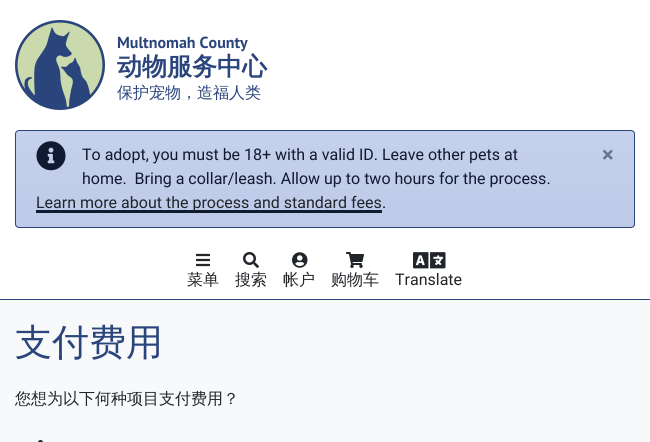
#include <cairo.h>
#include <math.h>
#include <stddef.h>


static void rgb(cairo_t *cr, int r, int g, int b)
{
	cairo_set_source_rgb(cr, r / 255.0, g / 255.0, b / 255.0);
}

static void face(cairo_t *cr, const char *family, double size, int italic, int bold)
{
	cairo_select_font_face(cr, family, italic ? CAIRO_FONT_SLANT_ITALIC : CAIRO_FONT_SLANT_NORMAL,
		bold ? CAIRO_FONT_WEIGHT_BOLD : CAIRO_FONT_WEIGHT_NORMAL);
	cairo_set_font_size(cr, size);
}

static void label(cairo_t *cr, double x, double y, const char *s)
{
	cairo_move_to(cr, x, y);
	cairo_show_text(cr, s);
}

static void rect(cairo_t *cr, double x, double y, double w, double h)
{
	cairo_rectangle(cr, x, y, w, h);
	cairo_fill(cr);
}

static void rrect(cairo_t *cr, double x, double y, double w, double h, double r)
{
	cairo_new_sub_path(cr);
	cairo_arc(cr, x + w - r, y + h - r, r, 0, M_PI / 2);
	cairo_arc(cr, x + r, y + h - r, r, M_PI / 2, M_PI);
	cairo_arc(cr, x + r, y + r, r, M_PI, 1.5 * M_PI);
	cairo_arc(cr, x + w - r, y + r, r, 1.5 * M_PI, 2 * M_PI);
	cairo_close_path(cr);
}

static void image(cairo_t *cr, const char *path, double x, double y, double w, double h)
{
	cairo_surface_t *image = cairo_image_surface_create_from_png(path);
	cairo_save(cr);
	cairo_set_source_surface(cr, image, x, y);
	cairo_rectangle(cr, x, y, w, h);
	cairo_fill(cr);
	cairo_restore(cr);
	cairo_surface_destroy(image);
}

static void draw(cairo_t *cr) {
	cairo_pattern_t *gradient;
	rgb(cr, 248, 249, 250);
	cairo_paint(cr);
	rgb(cr, 255, 255, 255);
	rect(cr, 0, 0, 650, 299);
	rgb(cr, 42, 68, 124);
	rect(cr, 0, 299, 650, 1);
	image(cr, "image0.png", 15, 20, 90, 90);
	face(cr, "PT Sans", 16, 0, 1);
	label(cr, 117, 48, "Multnomah County");
	face(cr, "WenQuanYi Zen Hei", 25, 0, 1);
	label(cr, 117, 75, "动物服务中心");
	face(cr, "WenQuanYi Zen Hei Medium", 16, 0, 0);
	label(cr, 117, 98, "保护宠物，造福人类");
	cairo_save(cr);
	rrect(cr, 15, 130, 620, 98, 4);
	cairo_clip(cr);
	gradient = cairo_pattern_create_linear(325, 131, 325, 227);
	cairo_pattern_add_color_stop_rgba(gradient, 0, 0.776, 0.82, 0.922, 1);
	cairo_pattern_add_color_stop_rgba(gradient, 1, 0.741, 0.792, 0.91, 1);
	cairo_set_source(cr, gradient);
	cairo_pattern_destroy(gradient);
	rect(cr, 15, 131, 620, 96);
	cairo_restore(cr);
	rrect(cr, 15.5, 130.5, 619, 97, 3.5);
	cairo_set_line_width(cr, 1);
	cairo_stroke(cr);
	image(cr, "image1.png", 36, 141, 30, 30);
	face(cr, "Roboto", 16, 0, 0);
	rgb(cr, 16, 26, 48);
	label(cr, 82, 160, "To adopt, you must be 18+ with a valid ID. Leave other pets at");
	label(cr, 82, 184, "home.  Bring a collar/leash. Allow up to two hours for the process.");
	rect(cr, 36, 210, 346, 3);
	rgb(cr, 33, 37, 41);
	label(cr, 36, 208, "Learn more about the process and standard fees");
	rgb(cr, 16, 26, 48);
	label(cr, 382, 208, ".");
	face(cr, "Roboto", 22, 0, 1);
	rgb(cr, 106, 117, 141);
	label(cr, 602, 162, "×");
	image(cr, "image2.png", 196, 253, 14, 14);
	face(cr, "WenQuanYi Zen Hei Medium", 16, 0, 0);
	rgb(cr, 33, 37, 41);
	label(cr, 187, 285, "菜单");
	image(cr, "image3.png", 243, 252, 16, 16);
	label(cr, 235, 285, "搜索");
	image(cr, "image4.png", 292, 252, 16, 16);
	label(cr, 283, 285, "帐户");
	image(cr, "image5.png", 346, 252, 18, 16);
	label(cr, 331, 285, "购物车");
	image(cr, "image6.png", 413, 252, 33, 17);
	face(cr, "Roboto", 16, 0, 0);
	label(cr, 395, 285, "Translate");
	face(cr, "WenQuanYi Zen Hei Medium", 37, 0, 0);
	rgb(cr, 42, 68, 124);
	label(cr, 15, 355, "支付费用");
	face(cr, "WenQuanYi Zen Hei Medium", 16, 0, 0);
	rgb(cr, 33, 37, 41);
	label(cr, 15, 404, "您想为以下何种项目支付费用？");
	cairo_new_path(cr);
	cairo_arc(cr, 40.5, 442.5, 2.5, 0, 2 * M_PI);
	cairo_fill(cr);
}

int main(void) {
	cairo_surface_t *surface = cairo_image_surface_create(CAIRO_FORMAT_RGB24, 650, 442);
	cairo_t *cr = cairo_create(surface);
	cairo_font_options_t *options = cairo_font_options_create();
	cairo_font_options_set_hint_metrics(options, CAIRO_HINT_METRICS_OFF);
	cairo_font_options_set_hint_style(options, CAIRO_HINT_STYLE_NONE);
	cairo_set_font_options(cr, options);
	cairo_set_miter_limit(cr, 4);
	draw(cr);
	cairo_surface_write_to_png(surface, "render.png");
	cairo_font_options_destroy(options);
	cairo_destroy(cr);
	cairo_surface_destroy(surface);
	return 0;
}
